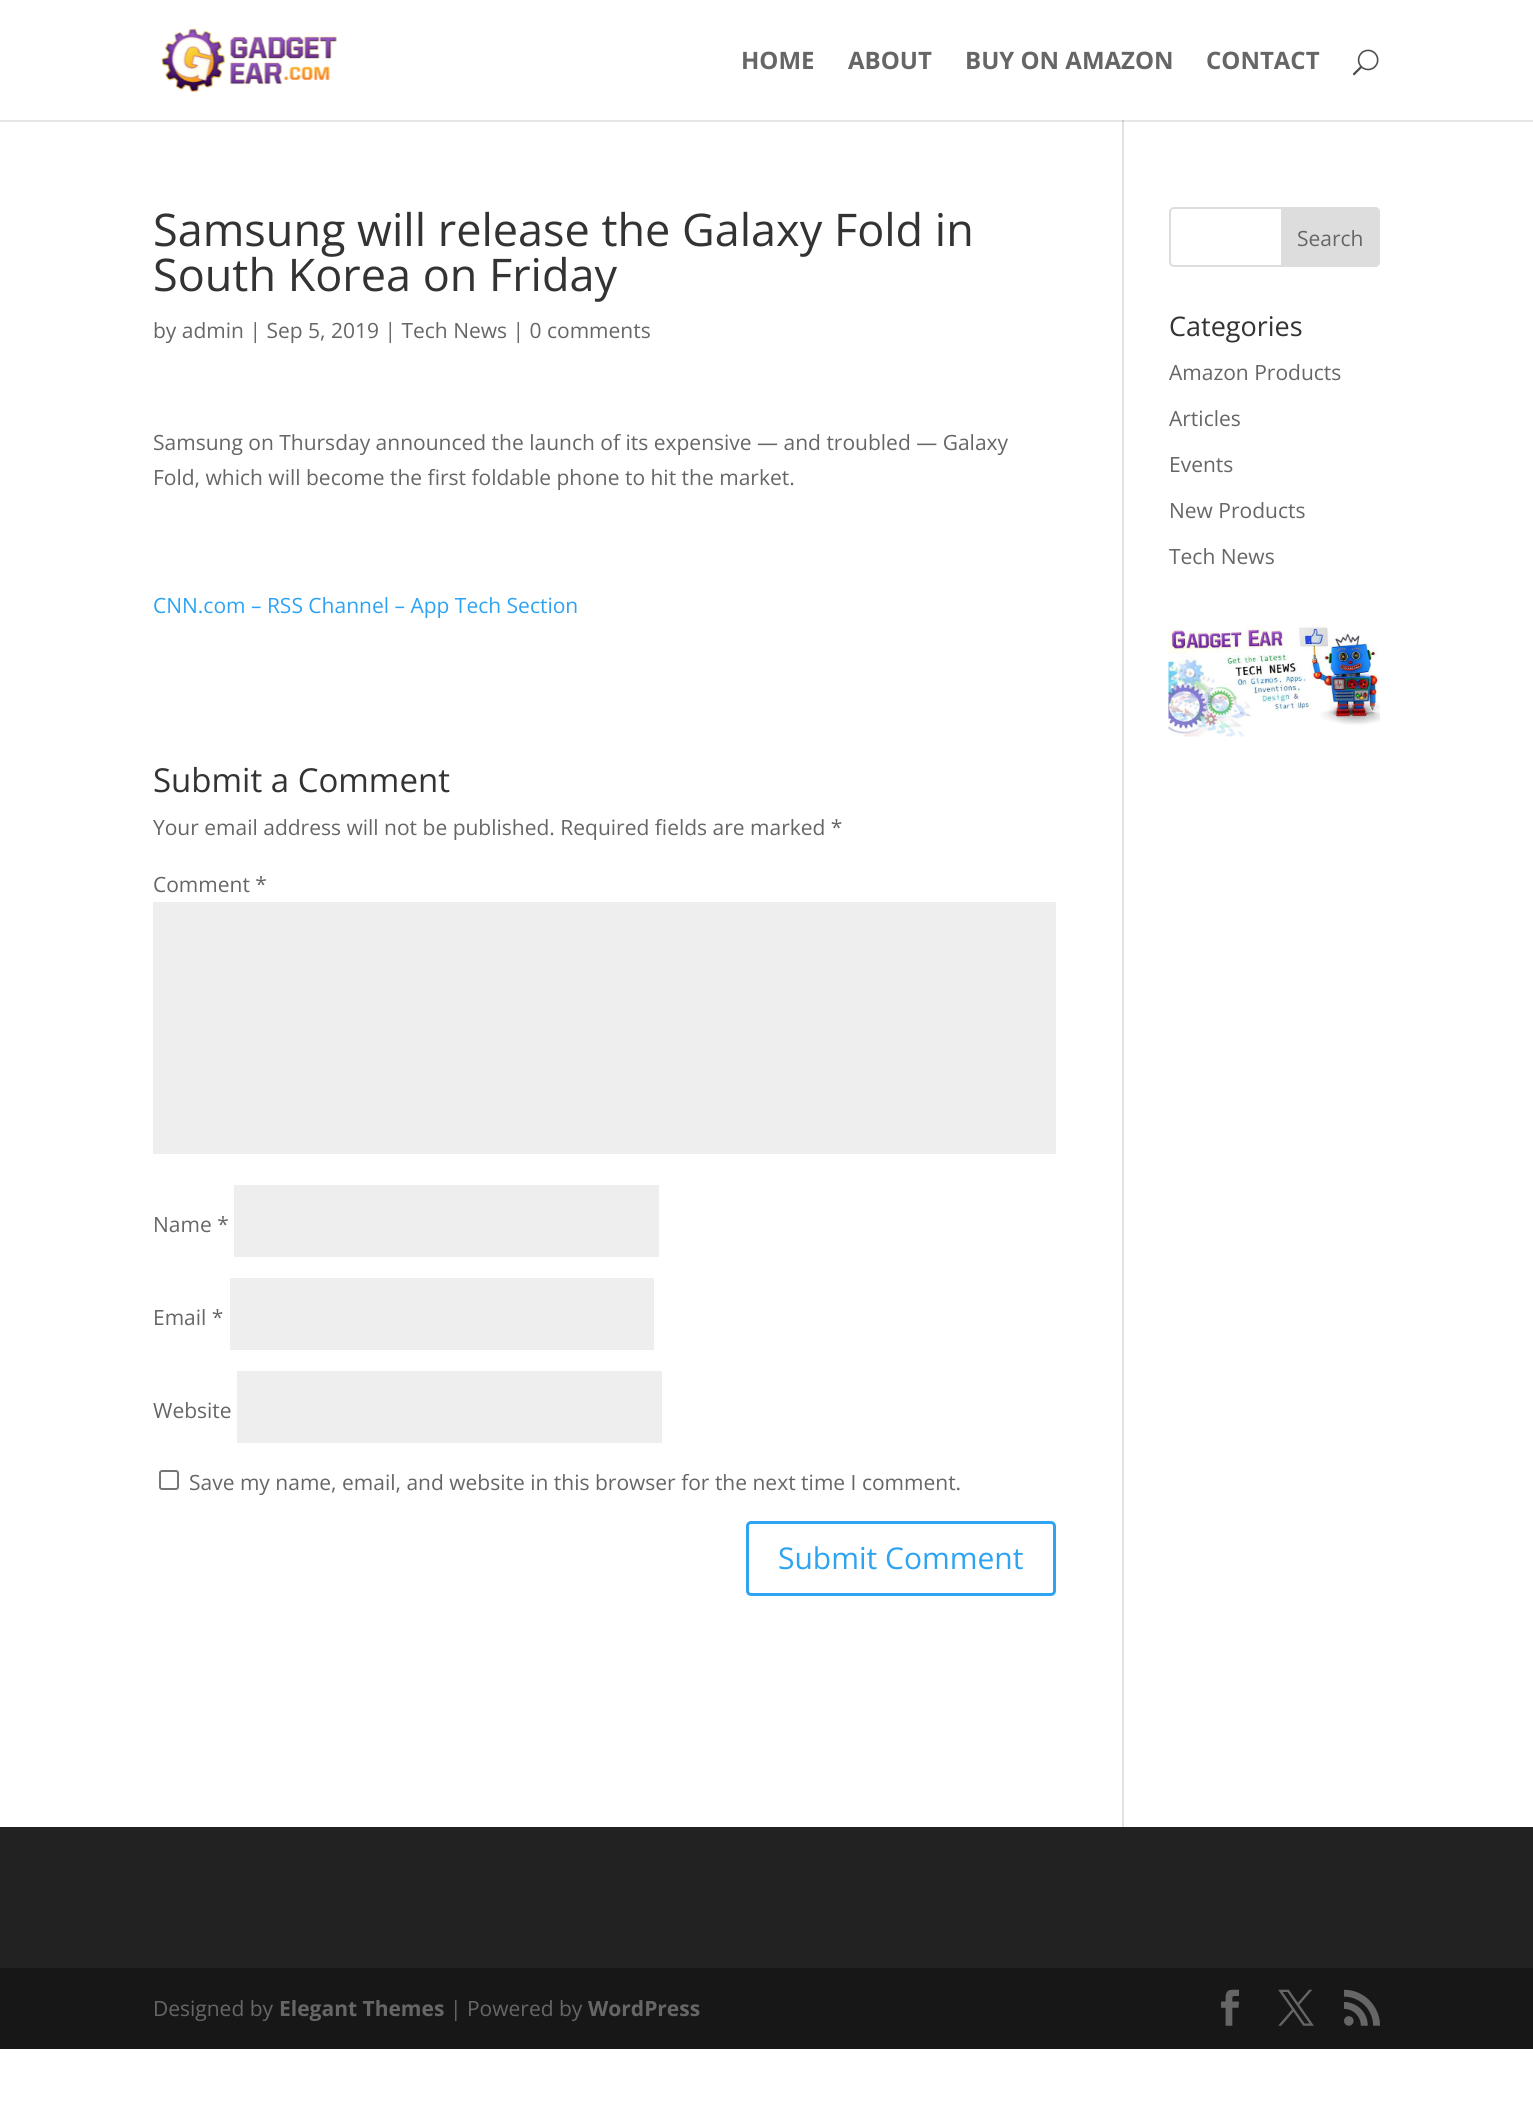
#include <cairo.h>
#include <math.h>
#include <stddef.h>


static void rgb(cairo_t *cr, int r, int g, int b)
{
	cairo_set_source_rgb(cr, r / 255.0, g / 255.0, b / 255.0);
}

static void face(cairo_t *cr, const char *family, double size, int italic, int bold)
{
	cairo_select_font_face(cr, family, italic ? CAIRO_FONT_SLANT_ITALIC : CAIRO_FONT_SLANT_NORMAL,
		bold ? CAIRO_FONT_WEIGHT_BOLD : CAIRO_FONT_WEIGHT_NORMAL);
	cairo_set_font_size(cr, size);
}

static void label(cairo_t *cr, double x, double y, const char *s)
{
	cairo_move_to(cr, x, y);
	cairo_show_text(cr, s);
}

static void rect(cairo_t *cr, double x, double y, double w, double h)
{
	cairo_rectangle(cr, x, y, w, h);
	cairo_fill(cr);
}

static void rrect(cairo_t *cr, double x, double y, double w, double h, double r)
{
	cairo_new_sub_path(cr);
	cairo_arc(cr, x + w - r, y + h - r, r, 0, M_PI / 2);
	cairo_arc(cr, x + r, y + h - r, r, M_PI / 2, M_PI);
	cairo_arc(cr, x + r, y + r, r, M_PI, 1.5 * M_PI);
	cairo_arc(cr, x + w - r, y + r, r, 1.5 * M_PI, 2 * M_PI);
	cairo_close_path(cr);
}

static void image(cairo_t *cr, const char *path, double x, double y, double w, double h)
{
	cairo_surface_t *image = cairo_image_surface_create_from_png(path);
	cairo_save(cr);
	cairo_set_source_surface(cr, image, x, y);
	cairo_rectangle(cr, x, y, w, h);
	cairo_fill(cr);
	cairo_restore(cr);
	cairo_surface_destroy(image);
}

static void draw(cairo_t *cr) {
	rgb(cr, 255, 255, 255);
	cairo_paint(cr);
	rgb(cr, 230, 230, 230);
	rect(cr, 0, 120, 1533, 2);
	image(cr, "image0.png", 161, 28, 176, 64);
	face(cr, "Open Sans", 24, 0, 1);
	rgb(cr, 102, 102, 102);
	label(cr, 741, 69, "HOME");
	label(cr, 848, 69, "ABOUT");
	label(cr, 965, 69, "BUY ON AMAZON");
	label(cr, 1206, 69, "CONTACT");
	image(cr, "image1.png", 1352, 49, 27, 27);
	rgb(cr, 226, 226, 226);
	rect(cr, 1122, 120, 2, 1707);
	rgb(cr, 203, 203, 203);
	rect(cr, 1122, 120, 2, 2);
	face(cr, "Open Sans", 45, 0, 0);
	rgb(cr, 51, 51, 51);
	label(cr, 153, 246, "Samsung will release the Galaxy Fold in");
	label(cr, 153, 291, "South Korea on Friday");
	face(cr, "Open Sans", 21, 0, 0);
	rgb(cr, 102, 102, 102);
	label(cr, 153, 338, "by admin | Sep 5, 2019 | Tech News | 0 comments");
	label(cr, 153, 450, "Samsung on Thursday announced the launch of its expensive — and troubled — Galaxy");
	label(cr, 153, 485, "Fold, which will become the first foldable phone to hit the market.");
	rgb(cr, 46, 163, 242);
	label(cr, 153, 613, "CNN.com – RSS Channel – App Tech Section");
	face(cr, "Open Sans", 33, 0, 0);
	rgb(cr, 51, 51, 51);
	label(cr, 153, 792, "Submit a Comment");
	face(cr, "Open Sans", 21, 0, 0);
	rgb(cr, 102, 102, 102);
	label(cr, 153, 835, "Your email address will not be published. Required fields are marked *");
	label(cr, 153, 892, "Comment *");
	rgb(cr, 238, 238, 238);
	rect(cr, 153, 902, 903, 252);
	rgb(cr, 102, 102, 102);
	label(cr, 153, 1232, "Name *");
	rgb(cr, 238, 238, 238);
	rect(cr, 234, 1185, 425, 72);
	rgb(cr, 102, 102, 102);
	label(cr, 153, 1325, "Email *");
	rgb(cr, 238, 238, 238);
	rect(cr, 230, 1278, 424, 72);
	rgb(cr, 102, 102, 102);
	label(cr, 153, 1418, "Website");
	rgb(cr, 238, 238, 238);
	rect(cr, 237, 1371, 425, 72);
	rrect(cr, 160, 1471, 18, 18, 2);
	rgb(cr, 118, 118, 118);
	cairo_stroke(cr);
	rgb(cr, 102, 102, 102);
	label(cr, 189, 1490, "Save my name, email, and website in this browser for the next time I comment.");
	rrect(cr, 747.5, 1522.5, 307, 72, 3.5);
	rgb(cr, 46, 163, 242);
	cairo_set_line_width(cr, 3);
	cairo_stroke(cr);
	face(cr, "Open Sans", 30, 0, 0);
	label(cr, 778, 1569, "Submit Comment");
	rrect(cr, 1170, 208, 209, 58, 4);
	rgb(cr, 221, 221, 221);
	cairo_set_line_width(cr, 2);
	cairo_stroke(cr);
	cairo_new_path(cr);
	cairo_move_to(cr, 1282, 208);
	cairo_line_to(cr, 1375, 208);
	cairo_curve_to(cr, 1377, 208, 1379, 210, 1379, 212);
	cairo_line_to(cr, 1379, 262);
	cairo_curve_to(cr, 1379, 264, 1377, 266, 1375, 266);
	cairo_line_to(cr, 1282, 266);
	cairo_close_path(cr);
	cairo_fill_preserve(cr);
	cairo_stroke(cr);
	face(cr, "Open Sans", 21, 0, 0);
	rgb(cr, 102, 102, 102);
	label(cr, 1297, 246, "Search");
	face(cr, "Open Sans", 27, 0, 0);
	rgb(cr, 51, 51, 51);
	label(cr, 1169, 336, "Categories");
	face(cr, "Open Sans", 21, 0, 0);
	rgb(cr, 102, 102, 102);
	label(cr, 1169, 380, "Amazon Products");
	label(cr, 1169, 426, "Articles");
	label(cr, 1169, 472, "Events");
	label(cr, 1169, 518, "New Products");
	label(cr, 1169, 564, "Tech News");
	image(cr, "image2.png", 1168, 625, 212, 112);
	rgb(cr, 34, 34, 34);
	rect(cr, 0, 1827, 1533, 141);
	rgb(cr, 23, 23, 23);
	rect(cr, 0, 1968, 1533, 81);
	rgb(cr, 102, 102, 102);
	label(cr, 153, 2016, "Designed by");
	face(cr, "Open Sans", 21, 0, 1);
	label(cr, 279, 2016, "Elegant Themes");
	face(cr, "Open Sans", 21, 0, 0);
	label(cr, 450, 2016, "| Powered by");
	face(cr, "Open Sans", 21, 0, 1);
	label(cr, 588, 2016, "WordPress");
	image(cr, "image3.png", 1221, 1989, 18, 37);
	image(cr, "image4.png", 1278, 1989, 36, 37);
	image(cr, "image5.png", 1344, 1989, 36, 37);
}

int main(void) {
	cairo_surface_t *surface = cairo_image_surface_create(CAIRO_FORMAT_RGB24, 1533, 2101);
	cairo_t *cr = cairo_create(surface);
	cairo_font_options_t *options = cairo_font_options_create();
	cairo_font_options_set_hint_metrics(options, CAIRO_HINT_METRICS_OFF);
	cairo_font_options_set_hint_style(options, CAIRO_HINT_STYLE_NONE);
	cairo_set_font_options(cr, options);
	cairo_set_miter_limit(cr, 4);
	draw(cr);
	cairo_surface_write_to_png(surface, "render.png");
	cairo_font_options_destroy(options);
	cairo_destroy(cr);
	cairo_surface_destroy(surface);
	return 0;
}
